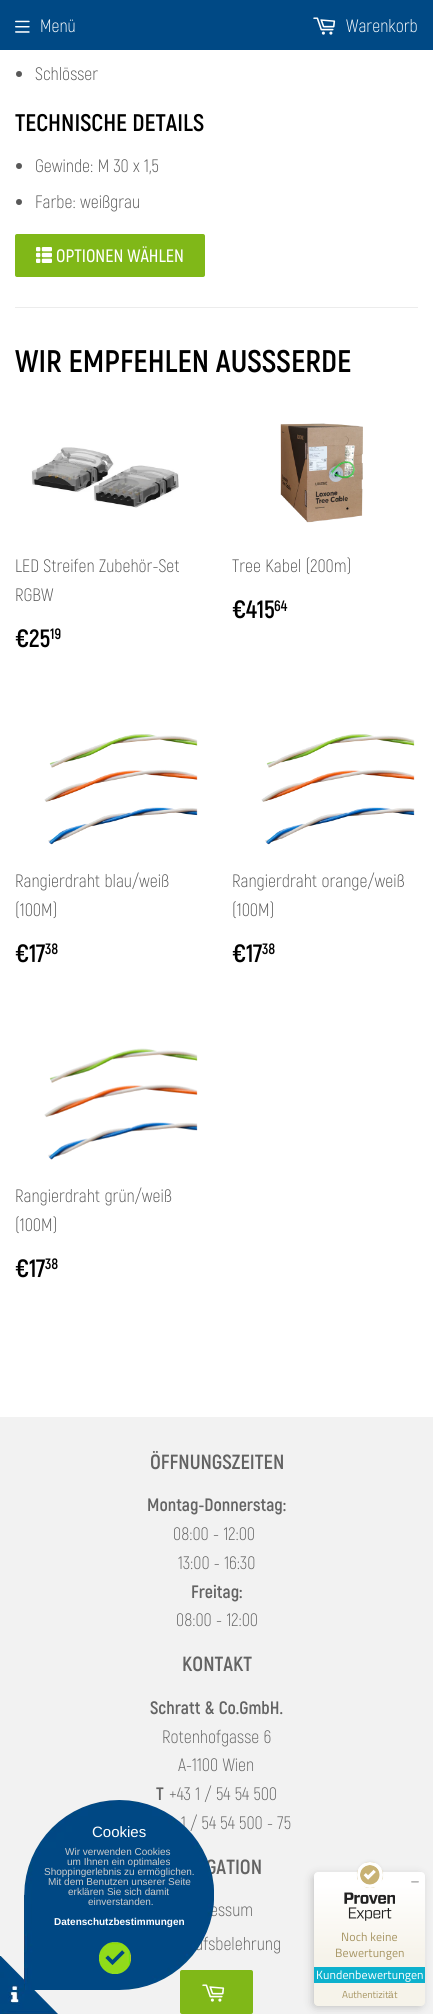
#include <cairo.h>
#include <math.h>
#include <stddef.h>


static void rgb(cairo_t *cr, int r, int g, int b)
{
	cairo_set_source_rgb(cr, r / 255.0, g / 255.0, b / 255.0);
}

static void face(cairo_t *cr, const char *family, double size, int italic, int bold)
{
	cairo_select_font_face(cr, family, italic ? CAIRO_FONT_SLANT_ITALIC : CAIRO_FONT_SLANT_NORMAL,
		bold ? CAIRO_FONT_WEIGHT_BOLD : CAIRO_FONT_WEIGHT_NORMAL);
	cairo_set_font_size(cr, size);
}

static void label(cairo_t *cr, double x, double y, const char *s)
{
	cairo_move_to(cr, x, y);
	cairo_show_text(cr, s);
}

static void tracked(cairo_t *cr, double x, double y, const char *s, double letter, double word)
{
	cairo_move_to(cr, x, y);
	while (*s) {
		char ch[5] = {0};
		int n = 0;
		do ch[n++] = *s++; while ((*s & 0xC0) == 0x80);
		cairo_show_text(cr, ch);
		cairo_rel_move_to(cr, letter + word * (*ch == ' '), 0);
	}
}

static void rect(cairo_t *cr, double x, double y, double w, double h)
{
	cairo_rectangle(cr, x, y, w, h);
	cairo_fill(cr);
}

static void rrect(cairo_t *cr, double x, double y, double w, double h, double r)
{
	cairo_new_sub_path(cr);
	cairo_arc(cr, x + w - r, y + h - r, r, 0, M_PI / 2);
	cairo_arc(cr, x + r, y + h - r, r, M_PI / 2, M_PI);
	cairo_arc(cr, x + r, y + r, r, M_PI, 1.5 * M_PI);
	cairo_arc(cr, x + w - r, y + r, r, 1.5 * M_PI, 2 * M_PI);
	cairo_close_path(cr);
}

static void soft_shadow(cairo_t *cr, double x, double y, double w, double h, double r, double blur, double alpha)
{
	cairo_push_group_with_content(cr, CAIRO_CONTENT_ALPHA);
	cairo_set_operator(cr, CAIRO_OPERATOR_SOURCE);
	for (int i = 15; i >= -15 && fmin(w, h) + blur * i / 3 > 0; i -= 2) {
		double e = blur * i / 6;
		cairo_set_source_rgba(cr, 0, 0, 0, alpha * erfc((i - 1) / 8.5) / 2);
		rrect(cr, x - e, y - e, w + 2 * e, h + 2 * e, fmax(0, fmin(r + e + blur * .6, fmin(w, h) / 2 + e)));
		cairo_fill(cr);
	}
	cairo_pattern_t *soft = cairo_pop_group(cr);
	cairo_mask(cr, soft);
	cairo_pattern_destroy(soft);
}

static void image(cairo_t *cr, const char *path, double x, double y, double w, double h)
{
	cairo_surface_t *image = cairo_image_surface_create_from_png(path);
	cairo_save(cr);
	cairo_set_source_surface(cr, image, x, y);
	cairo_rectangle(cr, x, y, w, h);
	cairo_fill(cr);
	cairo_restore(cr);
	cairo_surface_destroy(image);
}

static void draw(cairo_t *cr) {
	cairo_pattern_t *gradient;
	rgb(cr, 255, 255, 255);
	cairo_paint(cr);
	rgb(cr, 0, 73, 133);
	rect(cr, 0, 0, 433, 50);
	image(cr, "image0.png", 15, 20, 15, 13);
	face(cr, "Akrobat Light", 18, 0, 0);
	rgb(cr, 255, 255, 255);
	label(cr, 40, 32, "Menü");
	image(cr, "image1.png", 313, 17, 23, 18);
	label(cr, 346, 32, "Warenkorb");
	rgb(cr, 88, 88, 88);
	cairo_new_path(cr);
	cairo_arc(cr, 19, 74, 3, 0, 2 * M_PI);
	cairo_fill(cr);
	label(cr, 35, 80, "Schlösser");
	face(cr, "Akrobat", 24, 0, 1);
	rgb(cr, 0, 0, 0);
	label(cr, 15, 131, "TECHNISCHE DETAILS");
	rgb(cr, 88, 88, 88);
	cairo_new_path(cr);
	cairo_arc(cr, 19, 166, 3, 0, 2 * M_PI);
	cairo_fill(cr);
	face(cr, "Akrobat Light", 18, 0, 0);
	label(cr, 35, 172, "Gewinde: M 30 x 1,5");
	cairo_new_path(cr);
	cairo_arc(cr, 19, 202, 3, 0, 2 * M_PI);
	cairo_fill(cr);
	label(cr, 35, 208, "Farbe: weißgrau");
	rgb(cr, 128, 184, 24);
	rrect(cr, 15, 234, 190, 43, 2);
	cairo_fill(cr);
	image(cr, "image2.png", 36, 247, 16, 16);
	face(cr, "Akrobat SemiBold", 18, 0, 0);
	rgb(cr, 255, 255, 255);
	label(cr, 56, 262, "OPTIONEN WÄHLEN");
	rgb(cr, 236, 236, 236);
	rect(cr, 15, 307, 403, 1);
	face(cr, "Akrobat", 31.25, 0, 1);
	rgb(cr, 0, 0, 0);
	label(cr, 15, 372, "WIR EMPFEHLEN AUSSSERDE");
	image(cr, "image3.png", 31, 447, 148, 61);
	face(cr, "Akrobat Light", 18, 0, 0);
	rgb(cr, 88, 88, 88);
	label(cr, 15, 572, "LED Streifen Zubehör-Set");
	label(cr, 15, 601, "RGBW");
	face(cr, "Akrobat", 25, 0, 1);
	rgb(cr, 0, 0, 0);
	label(cr, 15, 647, "€25");
	face(cr, "Akrobat", 15, 0, 1);
	label(cr, 50, 639, "19");
	image(cr, "image4.png", 280, 423, 83, 100);
	face(cr, "Akrobat Light", 18, 0, 0);
	rgb(cr, 88, 88, 88);
	label(cr, 232, 572, "Tree Kabel (200m)");
	face(cr, "Akrobat", 25, 0, 1);
	rgb(cr, 0, 0, 0);
	label(cr, 232, 618, "€415");
	face(cr, "Akrobat", 15, 0, 1);
	label(cr, 274, 611, "64");
	image(cr, "image5.png", 44, 734, 154, 111);
	face(cr, "Akrobat Light", 18, 0, 0);
	rgb(cr, 88, 88, 88);
	label(cr, 15, 887, "Rangierdraht blau/weiß");
	label(cr, 15, 916, "(100M)");
	face(cr, "Akrobat", 25, 0, 1);
	rgb(cr, 0, 0, 0);
	label(cr, 15, 962, "€17");
	face(cr, "Akrobat", 15, 0, 1);
	label(cr, 45, 954, "38");
	image(cr, "image5.png", 261, 734, 154, 111);
	face(cr, "Akrobat Light", 18, 0, 0);
	rgb(cr, 88, 88, 88);
	label(cr, 232, 887, "Rangierdraht orange/weiß");
	label(cr, 232, 916, "(100M)");
	face(cr, "Akrobat", 25, 0, 1);
	rgb(cr, 0, 0, 0);
	label(cr, 232, 962, "€17");
	face(cr, "Akrobat", 15, 0, 1);
	label(cr, 262, 954, "38");
	image(cr, "image6.png", 44, 1048, 154, 112);
	face(cr, "Akrobat Light", 18, 0, 0);
	rgb(cr, 88, 88, 88);
	label(cr, 15, 1202, "Rangierdraht grün/weiß");
	label(cr, 15, 1231, "(100M)");
	face(cr, "Akrobat", 25, 0, 1);
	rgb(cr, 0, 0, 0);
	label(cr, 15, 1277, "€17");
	face(cr, "Akrobat", 15, 0, 1);
	label(cr, 45, 1269, "38");
	rgb(cr, 242, 242, 242);
	rect(cr, 0, 1417, 433, 597);
	rgb(cr, 128, 184, 24);
	rrect(cr, 180, 1970, 73, 44, 2);
	cairo_fill(cr);
	image(cr, "image7.png", 202, 1984, 23, 18);
	image(cr, "image10.png", 0, 1956, 58, 58);
	face(cr, "Akrobat Light", 18, 0, 0);
	rgb(cr, 99, 99, 99);
	label(cr, 169, 1800, "+43 1 / 54 54 500");
	label(cr, 181, 1829, "1 / 54 54 500 - 75");
	face(cr, "Akrobat", 20.5, 0, 1);
	label(cr, 206, 1874, "GATION");
	face(cr, "Akrobat Light", 18, 0, 0);
	label(cr, 210, 1916, "essum");
	label(cr, 195, 1950, "ufsbelehrung");
	image(cr, "image8.png", 24, 1800, 190, 190);
	face(cr, "Liberation Sans", 15, 0, 0);
	rgb(cr, 255, 255, 255);
	label(cr, 92, 1837, "Cookies");
	face(cr, "Liberation Sans", 10, 0, 0);
	rgb(cr, 204, 204, 204);
	label(cr, 65, 1855, "Wir verwenden Cookies");
	label(cr, 67, 1865, "um Ihnen ein optimales");
	label(cr, 44, 1875, "Shoppingerlebnis zu ermöglichen.");
	label(cr, 48, 1885, "Mit dem Benutzen unserer Seite");
	label(cr, 68, 1895, "erklären Sie sich damit");
	label(cr, 88, 1905, "einverstanden.");
	face(cr, "Liberation Sans", 10, 0, 1);
	rgb(cr, 255, 255, 255);
	label(cr, 54, 1925, "Datenschutzbestimmungen");
	image(cr, "image9.png", 99, 1942, 32, 32);
	face(cr, "Akrobat", 20.5, 0, 1);
	rgb(cr, 99, 99, 99);
	label(cr, 150, 1469, "ÖFFNUNGSZEITEN");
	face(cr, "Akrobat", 18, 0, 1);
	label(cr, 147, 1511, "Montag-Donnerstag:");
	face(cr, "Akrobat Light", 18, 0, 0);
	label(cr, 173, 1540, "08:00 - 12:00");
	label(cr, 178, 1569, "13:00 - 16:30");
	face(cr, "Akrobat", 18, 0, 1);
	label(cr, 191, 1598, "Freitag:");
	face(cr, "Akrobat Light", 18, 0, 0);
	label(cr, 176, 1626, "08:00 - 12:00");
	face(cr, "Akrobat", 20.5, 0, 1);
	label(cr, 182, 1671, "KONTAKT");
	face(cr, "Akrobat", 18, 0, 1);
	label(cr, 150, 1714, "Schratt & Co.GmbH.");
	face(cr, "Akrobat Light", 18, 0, 0);
	label(cr, 162, 1743, "Rotenhofgasse 6");
	label(cr, 178, 1771, "A-1100 Wien");
	face(cr, "Akrobat", 18, 0, 1);
	label(cr, 156, 1800, "T");
	rgb(cr, 0, 0, 0);
	soft_shadow(cr, 314, 1876, 107, 130, 2, 5, 0.25);
	gradient = cairo_pattern_create_linear(370, 2006, 370, 1872);
	cairo_pattern_add_color_stop_rgba(gradient, 0.37, 0.965, 0.953, 0.918, 1);
	cairo_pattern_add_color_stop_rgba(gradient, 0.9, 1, 1, 1, 1);
	cairo_set_source(cr, gradient);
	cairo_pattern_destroy(gradient);
	rrect(cr, 314, 1872, 111, 134, 4);
	cairo_fill(cr);
	image(cr, "image11.png", 411, 1881, 8, 2);
	rgb(cr, 0, 0, 0);
	soft_shadow(cr, 361, 1864, 18, 18, 9, 2.5, 0.25);
	rgb(cr, 255, 255, 255);
	cairo_arc(cr, 370, 1875, 13, 0, 2 * M_PI);
	cairo_fill(cr);
	image(cr, "image12.png", 357, 1862, 26, 26);
	cairo_arc(cr, 370, 1875, 11.5, 0, 2 * M_PI);
	cairo_set_line_width(cr, 3);
	cairo_stroke(cr);
	image(cr, "image13.png", 344, 1892, 51, 29);
	face(cr, "Titillium Web", 12, 0, 0);
	rgb(cr, 167, 149, 99);
	tracked(cr, 341, 1941, "Noch keine", 0.1, 0);
	tracked(cr, 335, 1957, "Bewertungen", 0.1, 0);
	rgb(cr, 13, 177, 205);
	rect(cr, 314, 1967, 111, 16);
	rgb(cr, 255, 255, 255);
	tracked(cr, 316, 1979, "Kundenbewertungen", 0.1, 0);
	face(cr, "Titillium Web", 10, 0, 0);
	rgb(cr, 167, 149, 99);
	label(cr, 342, 1998, "Authentizit");
	face(cr, "Liberation Sans", 10, 0, 0);
	label(cr, 388, 1998, "ä");
	face(cr, "Titillium Web", 10, 0, 0);
	label(cr, 394, 1998, "t");
}

int main(void) {
	cairo_surface_t *surface = cairo_image_surface_create(CAIRO_FORMAT_RGB24, 433, 2014);
	cairo_t *cr = cairo_create(surface);
	cairo_font_options_t *options = cairo_font_options_create();
	cairo_font_options_set_hint_metrics(options, CAIRO_HINT_METRICS_OFF);
	cairo_font_options_set_hint_style(options, CAIRO_HINT_STYLE_NONE);
	cairo_set_font_options(cr, options);
	cairo_set_miter_limit(cr, 4);
	draw(cr);
	cairo_surface_write_to_png(surface, "render.png");
	cairo_font_options_destroy(options);
	cairo_destroy(cr);
	cairo_surface_destroy(surface);
	return 0;
}
